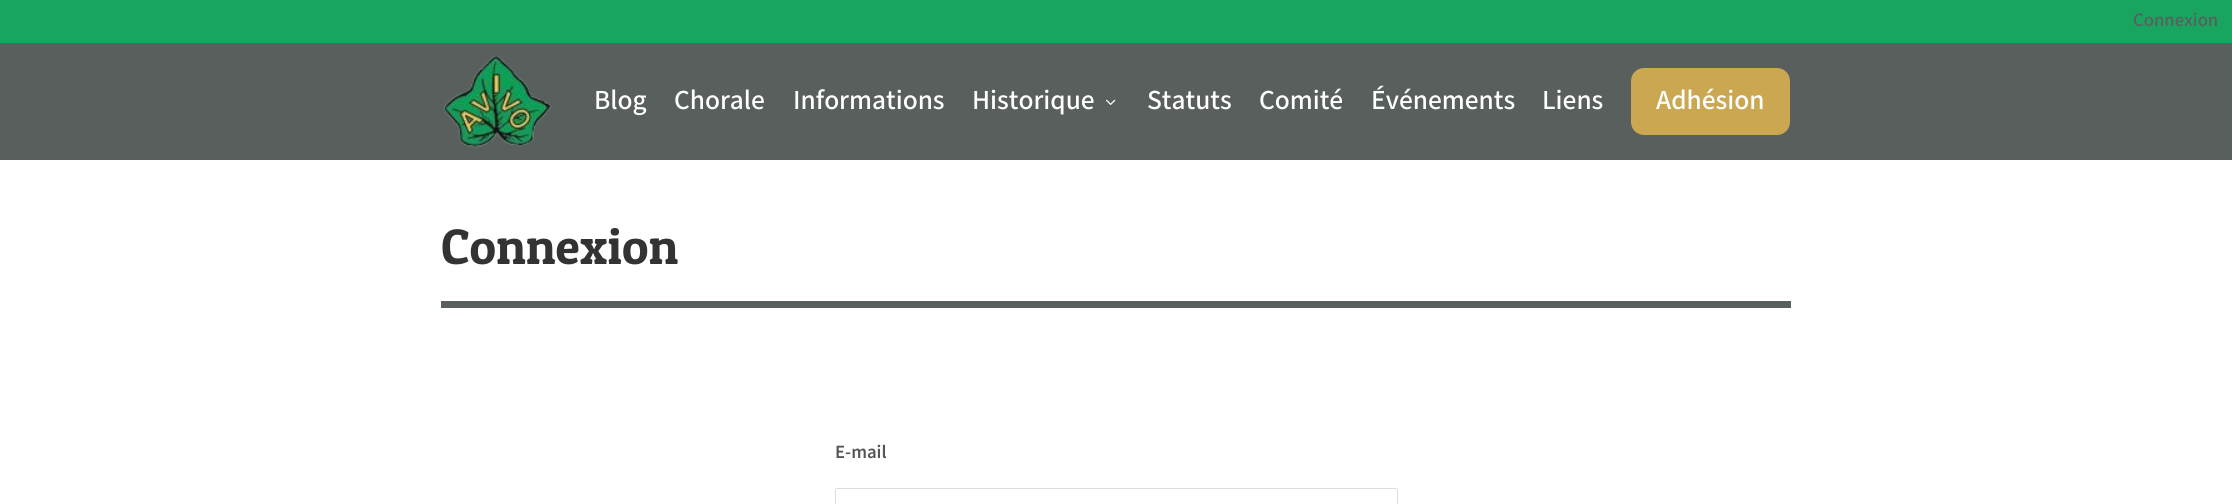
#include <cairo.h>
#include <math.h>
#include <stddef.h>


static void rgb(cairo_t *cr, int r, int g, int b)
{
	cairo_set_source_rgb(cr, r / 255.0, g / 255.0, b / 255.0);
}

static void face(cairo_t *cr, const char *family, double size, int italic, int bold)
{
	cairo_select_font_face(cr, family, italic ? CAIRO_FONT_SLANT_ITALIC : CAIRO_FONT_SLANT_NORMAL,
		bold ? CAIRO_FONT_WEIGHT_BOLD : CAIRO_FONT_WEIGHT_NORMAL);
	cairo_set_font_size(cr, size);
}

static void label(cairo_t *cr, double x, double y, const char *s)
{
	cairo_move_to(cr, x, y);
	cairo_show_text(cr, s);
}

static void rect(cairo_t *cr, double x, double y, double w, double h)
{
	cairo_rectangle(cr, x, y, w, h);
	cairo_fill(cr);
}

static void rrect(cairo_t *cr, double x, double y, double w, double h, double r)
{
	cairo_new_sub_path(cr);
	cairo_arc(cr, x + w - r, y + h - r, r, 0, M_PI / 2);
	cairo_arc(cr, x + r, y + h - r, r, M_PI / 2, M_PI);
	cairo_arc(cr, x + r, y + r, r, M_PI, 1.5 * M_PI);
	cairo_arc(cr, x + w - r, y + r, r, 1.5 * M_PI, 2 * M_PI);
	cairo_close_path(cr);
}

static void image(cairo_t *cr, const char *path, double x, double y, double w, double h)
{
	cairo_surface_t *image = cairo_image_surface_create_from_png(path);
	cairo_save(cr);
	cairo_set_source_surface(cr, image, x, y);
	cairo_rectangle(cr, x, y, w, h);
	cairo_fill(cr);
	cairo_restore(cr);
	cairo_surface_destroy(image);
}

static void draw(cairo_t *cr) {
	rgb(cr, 255, 255, 255);
	cairo_paint(cr);
	rgb(cr, 25, 164, 96);
	rect(cr, 0, 0, 2232, 43);
	face(cr, "Mada Medium", 18.75, 0, 0);
	rgb(cr, 89, 95, 93);
	label(cr, 2133, 26, "Connexion");
	rect(cr, 0, 43, 2232, 117);
	image(cr, "image0.png", 443, 55, 109, 93);
	face(cr, "Mada Medium", 27.5, 0, 0);
	rgb(cr, 255, 255, 255);
	label(cr, 594, 109, "Blog");
	label(cr, 674, 109, "Chorale");
	label(cr, 793, 109, "Informations");
	label(cr, 972, 109, "Historique");
	image(cr, "image1.png", 1106, 99, 10, 6);
	label(cr, 1147, 109, "Statuts");
	label(cr, 1259, 109, "Comité");
	label(cr, 1371, 109, "Événements");
	label(cr, 1542, 109, "Liens");
	rgb(cr, 203, 167, 81);
	rrect(cr, 1631, 68, 159, 67, 13);
	cairo_fill(cr);
	rgb(cr, 255, 255, 255);
	label(cr, 1656, 109, "Adhésion");
	face(cr, "Patua One", 50, 0, 0);
	rgb(cr, 51, 51, 51);
	label(cr, 441, 264, "Connexion");
	rgb(cr, 89, 95, 93);
	rect(cr, 441, 301, 1350, 7);
	face(cr, "Mada SemiBold", 18.75, 0, 0);
	rgb(cr, 85, 85, 85);
	label(cr, 835, 458, "E-mail");
	rrect(cr, 835.5, 488.5, 562, 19, 2);
	rgb(cr, 221, 221, 221);
	cairo_set_line_width(cr, 1);
	cairo_stroke(cr);
}

int main(void) {
	cairo_surface_t *surface = cairo_image_surface_create(CAIRO_FORMAT_RGB24, 2232, 504);
	cairo_t *cr = cairo_create(surface);
	cairo_font_options_t *options = cairo_font_options_create();
	cairo_font_options_set_hint_metrics(options, CAIRO_HINT_METRICS_OFF);
	cairo_font_options_set_hint_style(options, CAIRO_HINT_STYLE_NONE);
	cairo_set_font_options(cr, options);
	cairo_set_miter_limit(cr, 4);
	draw(cr);
	cairo_surface_write_to_png(surface, "render.png");
	cairo_font_options_destroy(options);
	cairo_destroy(cr);
	cairo_surface_destroy(surface);
	return 0;
}
